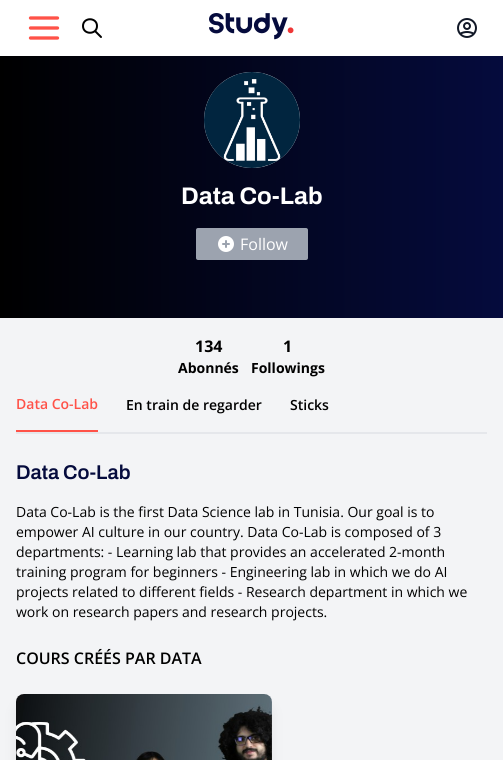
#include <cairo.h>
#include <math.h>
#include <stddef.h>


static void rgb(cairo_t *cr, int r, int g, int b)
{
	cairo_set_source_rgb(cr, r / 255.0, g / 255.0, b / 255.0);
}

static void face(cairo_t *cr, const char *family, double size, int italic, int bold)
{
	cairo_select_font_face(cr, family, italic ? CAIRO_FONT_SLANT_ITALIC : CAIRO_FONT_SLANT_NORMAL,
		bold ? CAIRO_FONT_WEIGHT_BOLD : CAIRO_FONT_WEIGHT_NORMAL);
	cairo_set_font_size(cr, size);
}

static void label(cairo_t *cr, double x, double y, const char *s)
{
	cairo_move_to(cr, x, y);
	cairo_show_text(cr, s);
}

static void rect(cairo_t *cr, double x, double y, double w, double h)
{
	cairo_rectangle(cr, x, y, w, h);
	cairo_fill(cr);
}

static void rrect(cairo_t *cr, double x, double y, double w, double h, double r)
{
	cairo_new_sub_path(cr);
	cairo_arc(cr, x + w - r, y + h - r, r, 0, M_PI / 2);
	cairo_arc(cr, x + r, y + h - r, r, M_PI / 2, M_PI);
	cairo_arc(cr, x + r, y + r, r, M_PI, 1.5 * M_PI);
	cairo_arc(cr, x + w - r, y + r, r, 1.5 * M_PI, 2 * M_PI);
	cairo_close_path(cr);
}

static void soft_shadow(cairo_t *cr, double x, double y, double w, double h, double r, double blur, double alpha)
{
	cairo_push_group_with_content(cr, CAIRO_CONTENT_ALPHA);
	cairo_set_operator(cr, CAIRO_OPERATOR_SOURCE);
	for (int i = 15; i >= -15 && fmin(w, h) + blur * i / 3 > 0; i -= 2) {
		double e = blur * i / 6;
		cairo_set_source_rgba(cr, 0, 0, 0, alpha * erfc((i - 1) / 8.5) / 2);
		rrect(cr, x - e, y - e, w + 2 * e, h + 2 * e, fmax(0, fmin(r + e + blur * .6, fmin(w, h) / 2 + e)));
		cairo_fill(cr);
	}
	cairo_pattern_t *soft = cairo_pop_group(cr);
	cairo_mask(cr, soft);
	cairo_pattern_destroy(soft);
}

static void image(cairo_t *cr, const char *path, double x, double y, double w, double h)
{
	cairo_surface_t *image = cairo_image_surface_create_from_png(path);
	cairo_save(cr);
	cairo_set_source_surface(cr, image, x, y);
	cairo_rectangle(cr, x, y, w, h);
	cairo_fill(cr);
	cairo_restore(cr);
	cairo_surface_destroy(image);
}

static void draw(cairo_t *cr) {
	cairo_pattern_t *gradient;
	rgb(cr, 255, 255, 255);
	cairo_paint(cr);
	cairo_new_path(cr);
	cairo_move_to(cr, 30.5, 18);
	cairo_line_to(cr, 57.5, 18);
	cairo_move_to(cr, 30.5, 28);
	cairo_line_to(cr, 57.5, 28);
	cairo_move_to(cr, 30.5, 38);
	cairo_line_to(cr, 57.5, 38);
	rgb(cr, 255, 82, 72);
	cairo_set_line_width(cr, 3.3);
	cairo_set_line_cap(cr, CAIRO_LINE_CAP_ROUND);
	cairo_set_line_join(cr, CAIRO_LINE_JOIN_ROUND);
	cairo_stroke(cr);
	cairo_new_path(cr);
	cairo_move_to(cr, 101, 37);
	cairo_line_to(cr, 95, 31);
	cairo_move_to(cr, 97, 26);
	cairo_curve_to(cr, 97, 35, 83, 35, 83, 26);
	cairo_curve_to(cr, 83, 17, 97, 17, 97, 26);
	cairo_close_path(cr);
	rgb(cr, 0, 0, 0);
	cairo_set_line_width(cr, 2);
	cairo_stroke(cr);
	image(cr, "image0.png", 209, 13, 85, 27);
	image(cr, "image1.png", 457, 18, 20, 20);
	gradient = cairo_pattern_create_linear(0, 187, 503, 187);
	cairo_pattern_add_color_stop_rgba(gradient, 0, 0, 0, 0, 1);
	cairo_pattern_add_color_stop_rgba(gradient, 1, 0.02, 0.043, 0.239, 1);
	cairo_set_source(cr, gradient);
	cairo_pattern_destroy(gradient);
	rect(cr, 0, 56, 503, 262);
	rgb(cr, 229, 231, 235);
	cairo_arc(cr, 252, 120, 48, 0, 2 * M_PI);
	cairo_fill(cr);
	image(cr, "image2.png", 204, 72, 96, 96);
	face(cr, "Archivo", 24, 0, 1);
	rgb(cr, 255, 255, 255);
	label(cr, 181, 204, "Data Co-Lab");
	rgb(cr, 156, 163, 175);
	rrect(cr, 196, 228, 112, 32, 2);
	cairo_fill(cr);
	image(cr, "image3.png", 218, 236, 16, 16);
	face(cr, "Open Sans", 16, 0, 0);
	rgb(cr, 255, 255, 255);
	label(cr, 240, 250, "Follow");
	rgb(cr, 243, 244, 246);
	rect(cr, 0, 318, 503, 442);
	face(cr, "Open Sans", 16, 0, 1);
	rgb(cr, 0, 0, 0);
	label(cr, 195, 352, "134");
	face(cr, "Open Sans", 14, 0, 1);
	label(cr, 178, 373, "Abonnés");
	face(cr, "Open Sans", 16, 0, 1);
	label(cr, 283, 352, "1");
	face(cr, "Open Sans", 14, 0, 1);
	label(cr, 251, 373, "Followings");
	rgb(cr, 229, 231, 235);
	rect(cr, 16, 432, 471, 2);
	rgb(cr, 255, 82, 72);
	rect(cr, 16, 430, 82, 2);
	face(cr, "Open Sans SemiBold", 14, 0, 0);
	label(cr, 16, 409, "Data Co-Lab");
	rgb(cr, 0, 0, 0);
	label(cr, 126, 410, "En train de regarder");
	label(cr, 290, 410, "Sticks");
	face(cr, "Archivo SemiBold", 20, 0, 0);
	rgb(cr, 5, 11, 61);
	label(cr, 16, 479, "Data Co-Lab");
	face(cr, "Open Sans", 14, 0, 0);
	rgb(cr, 0, 0, 0);
	label(cr, 16, 517, "Data Co-Lab is the first Data Science lab in Tunisia. Our goal is to");
	label(cr, 16, 537, "empower AI culture in our country. Data Co-Lab is composed of 3");
	label(cr, 16, 557, "departments: - Learning lab that provides an accelerated 2-month");
	label(cr, 16, 577, "training program for beginners - Engineering lab in which we do AI");
	label(cr, 16, 597, "projects related to different fields - Research department in which we");
	label(cr, 16, 617, "work on research papers and research projects.");
	face(cr, "Open Sans SemiBold", 16, 0, 0);
	label(cr, 16, 664, "COURS CRÉÉS PAR DATA");
	rgb(cr, 0, 0, 0);
	soft_shadow(cr, 19, 707, 250, 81, 5, 7.5, 0.1);
	image(cr, "image4.png", 16, 694, 256, 66);
}

int main(void) {
	cairo_surface_t *surface = cairo_image_surface_create(CAIRO_FORMAT_RGB24, 503, 760);
	cairo_t *cr = cairo_create(surface);
	cairo_font_options_t *options = cairo_font_options_create();
	cairo_font_options_set_hint_metrics(options, CAIRO_HINT_METRICS_OFF);
	cairo_font_options_set_hint_style(options, CAIRO_HINT_STYLE_NONE);
	cairo_set_font_options(cr, options);
	cairo_set_miter_limit(cr, 4);
	draw(cr);
	cairo_surface_write_to_png(surface, "render.png");
	cairo_font_options_destroy(options);
	cairo_destroy(cr);
	cairo_surface_destroy(surface);
	return 0;
}
